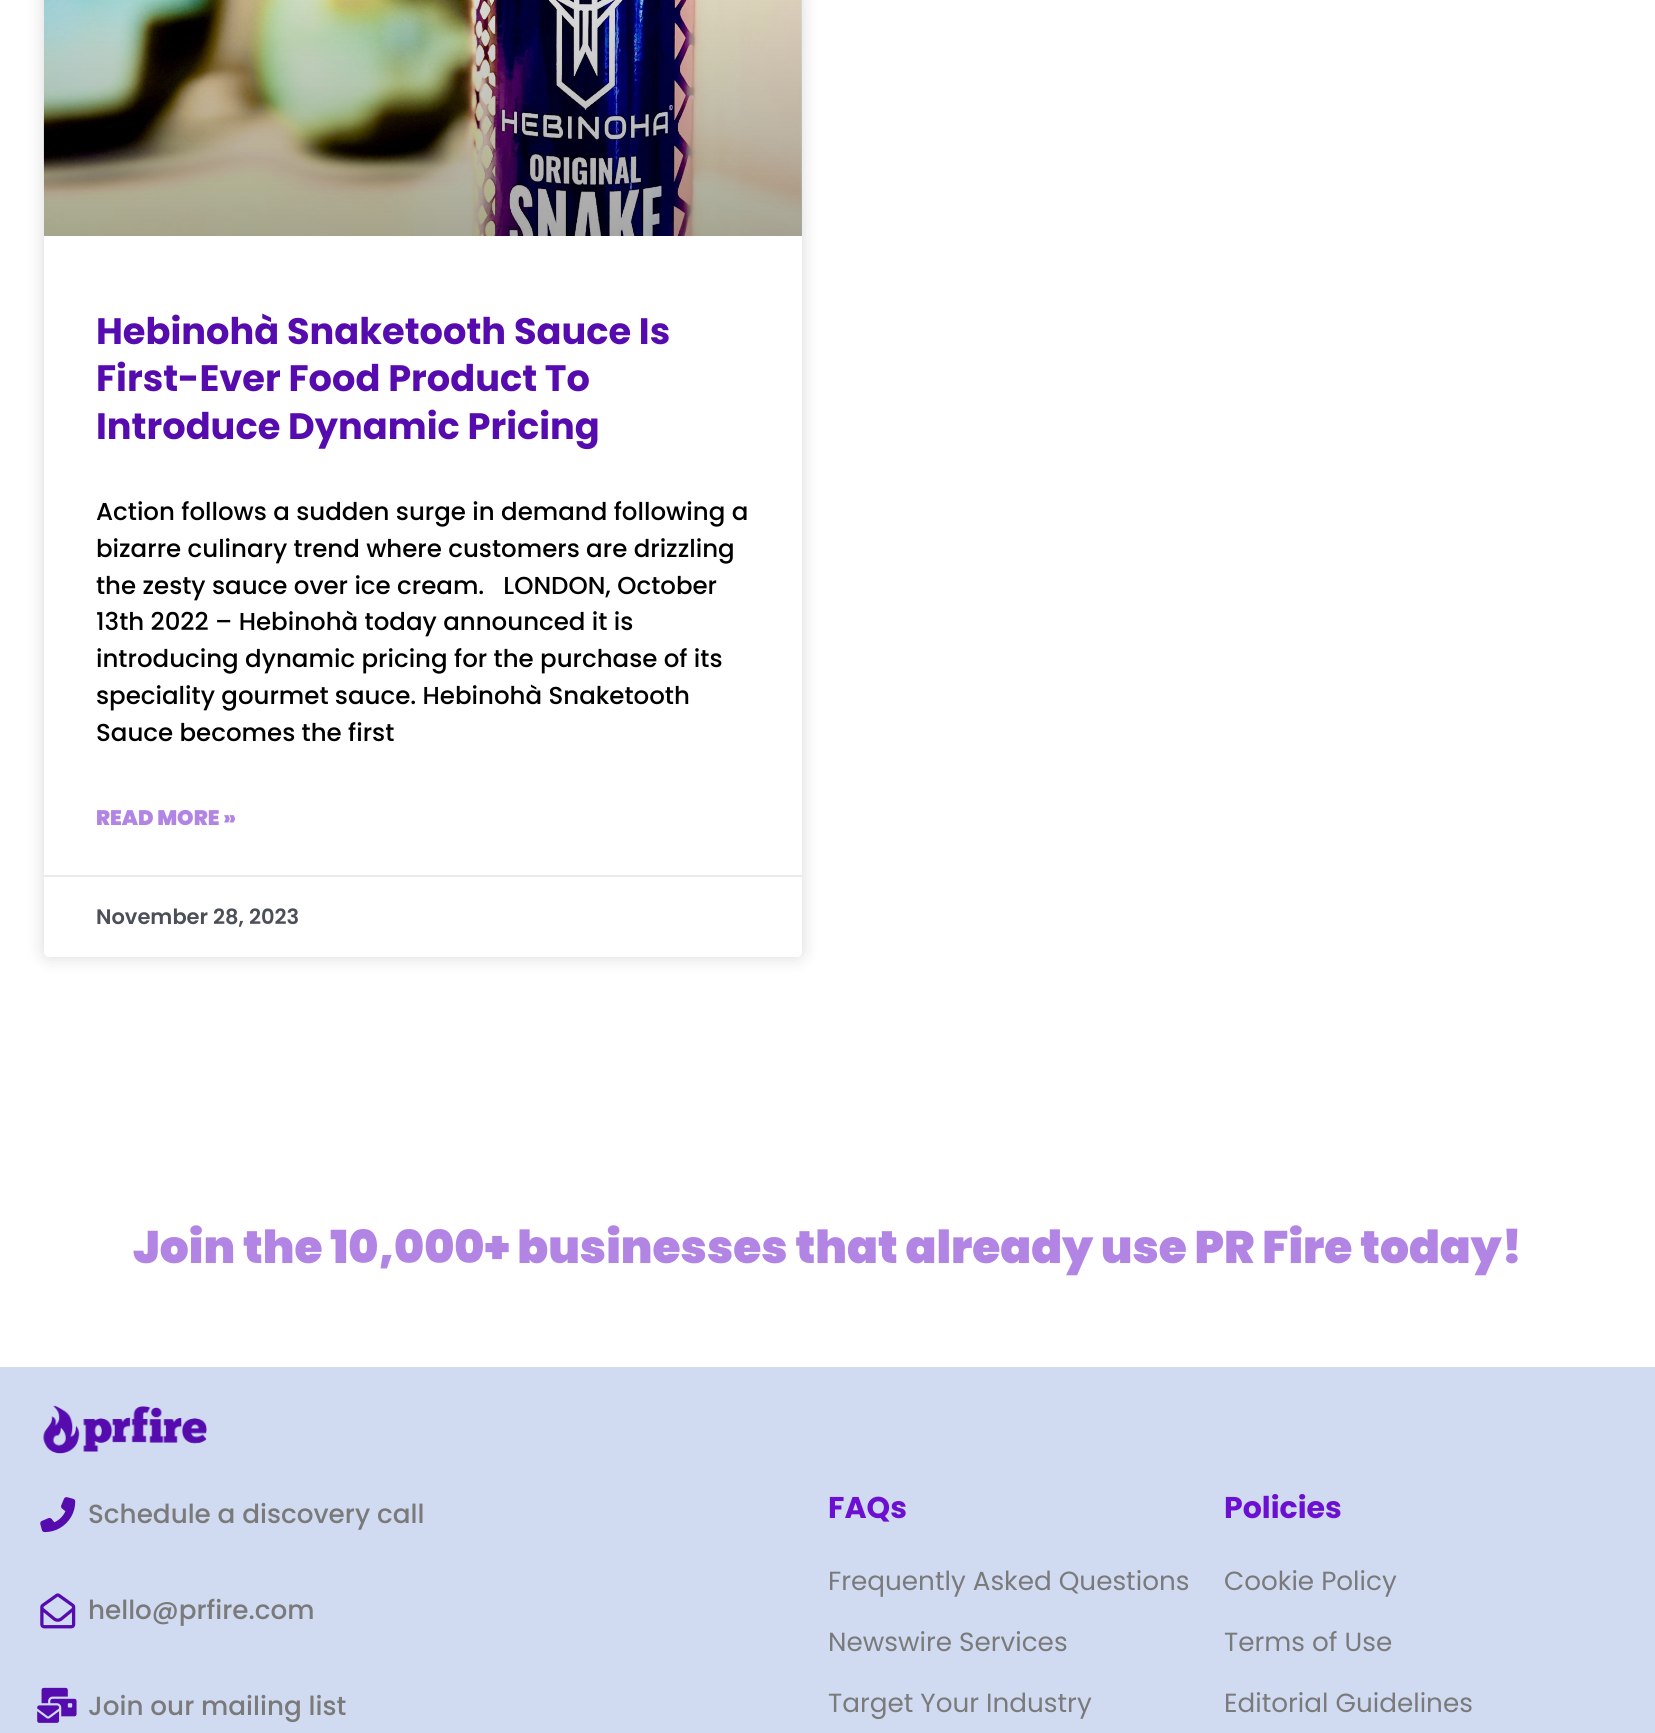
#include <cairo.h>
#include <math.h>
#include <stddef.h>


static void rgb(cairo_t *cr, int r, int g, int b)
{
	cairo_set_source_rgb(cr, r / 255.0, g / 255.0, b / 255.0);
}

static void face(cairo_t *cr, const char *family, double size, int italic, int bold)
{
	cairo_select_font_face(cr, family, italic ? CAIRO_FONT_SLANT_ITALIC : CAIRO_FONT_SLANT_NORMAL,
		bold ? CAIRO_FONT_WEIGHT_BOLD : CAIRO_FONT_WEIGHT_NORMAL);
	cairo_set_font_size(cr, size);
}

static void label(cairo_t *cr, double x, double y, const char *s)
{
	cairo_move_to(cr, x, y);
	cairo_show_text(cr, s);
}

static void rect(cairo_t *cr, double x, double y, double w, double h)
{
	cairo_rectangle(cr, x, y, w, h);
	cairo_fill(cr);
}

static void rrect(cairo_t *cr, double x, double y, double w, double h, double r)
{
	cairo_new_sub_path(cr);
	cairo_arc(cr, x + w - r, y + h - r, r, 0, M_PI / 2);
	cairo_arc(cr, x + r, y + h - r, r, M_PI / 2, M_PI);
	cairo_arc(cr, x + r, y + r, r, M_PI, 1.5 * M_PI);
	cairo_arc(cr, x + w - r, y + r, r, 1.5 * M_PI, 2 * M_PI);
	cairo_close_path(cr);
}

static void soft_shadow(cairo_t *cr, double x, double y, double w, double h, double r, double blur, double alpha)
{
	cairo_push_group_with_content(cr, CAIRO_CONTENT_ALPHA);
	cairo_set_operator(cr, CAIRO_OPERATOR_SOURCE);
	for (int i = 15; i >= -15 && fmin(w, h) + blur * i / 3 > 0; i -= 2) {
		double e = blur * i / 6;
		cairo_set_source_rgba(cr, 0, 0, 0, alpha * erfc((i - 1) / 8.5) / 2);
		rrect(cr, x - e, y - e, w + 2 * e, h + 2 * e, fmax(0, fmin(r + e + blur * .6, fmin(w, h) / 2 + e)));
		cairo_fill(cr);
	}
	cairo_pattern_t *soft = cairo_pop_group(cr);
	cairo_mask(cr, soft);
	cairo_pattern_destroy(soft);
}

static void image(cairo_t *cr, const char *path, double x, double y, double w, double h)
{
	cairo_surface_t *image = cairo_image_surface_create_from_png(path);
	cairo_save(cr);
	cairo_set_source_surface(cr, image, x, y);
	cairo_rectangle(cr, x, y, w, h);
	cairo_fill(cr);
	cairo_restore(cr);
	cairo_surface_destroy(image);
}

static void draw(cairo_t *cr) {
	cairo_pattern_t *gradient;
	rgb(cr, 255, 255, 255);
	cairo_paint(cr);
	rgb(cr, 0, 0, 0);
	soft_shadow(cr, 44, -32, 758, 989, 5, 9, 0.15);
	rgb(cr, 255, 255, 255);
	rrect(cr, 44, -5, 758, 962, 5);
	cairo_fill(cr);
	image(cr, "image0.png", 43, 0, 759, 236);
	gradient = cairo_pattern_create_linear(423, 236, 423, -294);
	cairo_pattern_add_color_stop_rgba(gradient, 0, 0, 0, 0, 0.35);
	cairo_pattern_add_color_stop_rgba(gradient, 0.75, 0, 0, 0, 0);
	cairo_set_source(cr, gradient);
	cairo_pattern_destroy(gradient);
	rect(cr, 44, 0, 758, 236);
	face(cr, "Poppins", 36.75, 0, 1);
	rgb(cr, 86, 11, 175);
	label(cr, 96, 344, "Hebinohà Snaketooth Sauce Is");
	label(cr, 96, 391, "First-Ever Food Product To");
	label(cr, 96, 439, "Introduce Dynamic Pricing");
	face(cr, "Poppins Medium", 24.5, 0, 0);
	rgb(cr, 0, 0, 0);
	label(cr, 96, 520, "Action follows a sudden surge in demand following a");
	label(cr, 96, 557, "bizarre culinary trend where customers are drizzling");
	label(cr, 96, 594, "the zesty sauce over ice cream.   LONDON, October");
	label(cr, 96, 630, "13th 2022 – Hebinohà today announced it is");
	label(cr, 96, 667, "introducing dynamic pricing for the purchase of its");
	label(cr, 96, 704, "speciality gourmet sauce. Hebinohà Snaketooth");
	label(cr, 96, 741, "Sauce becomes the first");
	face(cr, "Poppins Black", 21, 0, 0);
	rgb(cr, 178, 133, 229);
	label(cr, 96, 825, "READ MORE »");
	rgb(cr, 234, 234, 234);
	rect(cr, 44, 875, 758, 2);
	face(cr, "Poppins SemiBold", 21, 0, 0);
	rgb(cr, 75, 79, 88);
	label(cr, 96, 924, "November 28, 2023");
	face(cr, "Poppins Black", 45.5, 0, 0);
	rgb(cr, 178, 133, 229);
	label(cr, 133, 1263, "Join the 10,000+ businesses that already use PR Fire today!");
	rgb(cr, 208, 218, 241);
	rect(cr, 0, 1367, 1655, 366);
	image(cr, "image1.png", 43, 1405, 164, 49);
	image(cr, "image2.png", 40, 1497, 36, 36);
	face(cr, "Poppins Medium", 26.25, 0, 0);
	rgb(cr, 122, 122, 122);
	label(cr, 88, 1523, "Schedule a discovery call");
	image(cr, "image3.png", 40, 1593, 36, 36);
	label(cr, 88, 1619, "hello@prfire.com");
	image(cr, "image4.png", 37, 1687, 40, 36);
	label(cr, 88, 1715, "Join our mailing list");
	face(cr, "Poppins", 30, 0, 1);
	rgb(cr, 108, 15, 209);
	label(cr, 828, 1518, "FAQs");
	face(cr, "Poppins", 26.25, 0, 0);
	rgb(cr, 122, 122, 122);
	label(cr, 828, 1590, "Frequently Asked Questions");
	label(cr, 828, 1651, "Newswire Services");
	label(cr, 828, 1712, "Target Your Industry");
	face(cr, "Poppins", 30, 0, 1);
	rgb(cr, 108, 15, 209);
	label(cr, 1224, 1518, "Policies");
	face(cr, "Poppins", 26.25, 0, 0);
	rgb(cr, 122, 122, 122);
	label(cr, 1224, 1590, "Cookie Policy");
	label(cr, 1224, 1651, "Terms of Use");
	label(cr, 1224, 1712, "Editorial Guidelines");
}

int main(void) {
	cairo_surface_t *surface = cairo_image_surface_create(CAIRO_FORMAT_RGB24, 1655, 1733);
	cairo_t *cr = cairo_create(surface);
	cairo_font_options_t *options = cairo_font_options_create();
	cairo_font_options_set_hint_metrics(options, CAIRO_HINT_METRICS_OFF);
	cairo_font_options_set_hint_style(options, CAIRO_HINT_STYLE_NONE);
	cairo_set_font_options(cr, options);
	cairo_set_miter_limit(cr, 4);
	draw(cr);
	cairo_surface_write_to_png(surface, "render.png");
	cairo_font_options_destroy(options);
	cairo_destroy(cr);
	cairo_surface_destroy(surface);
	return 0;
}
